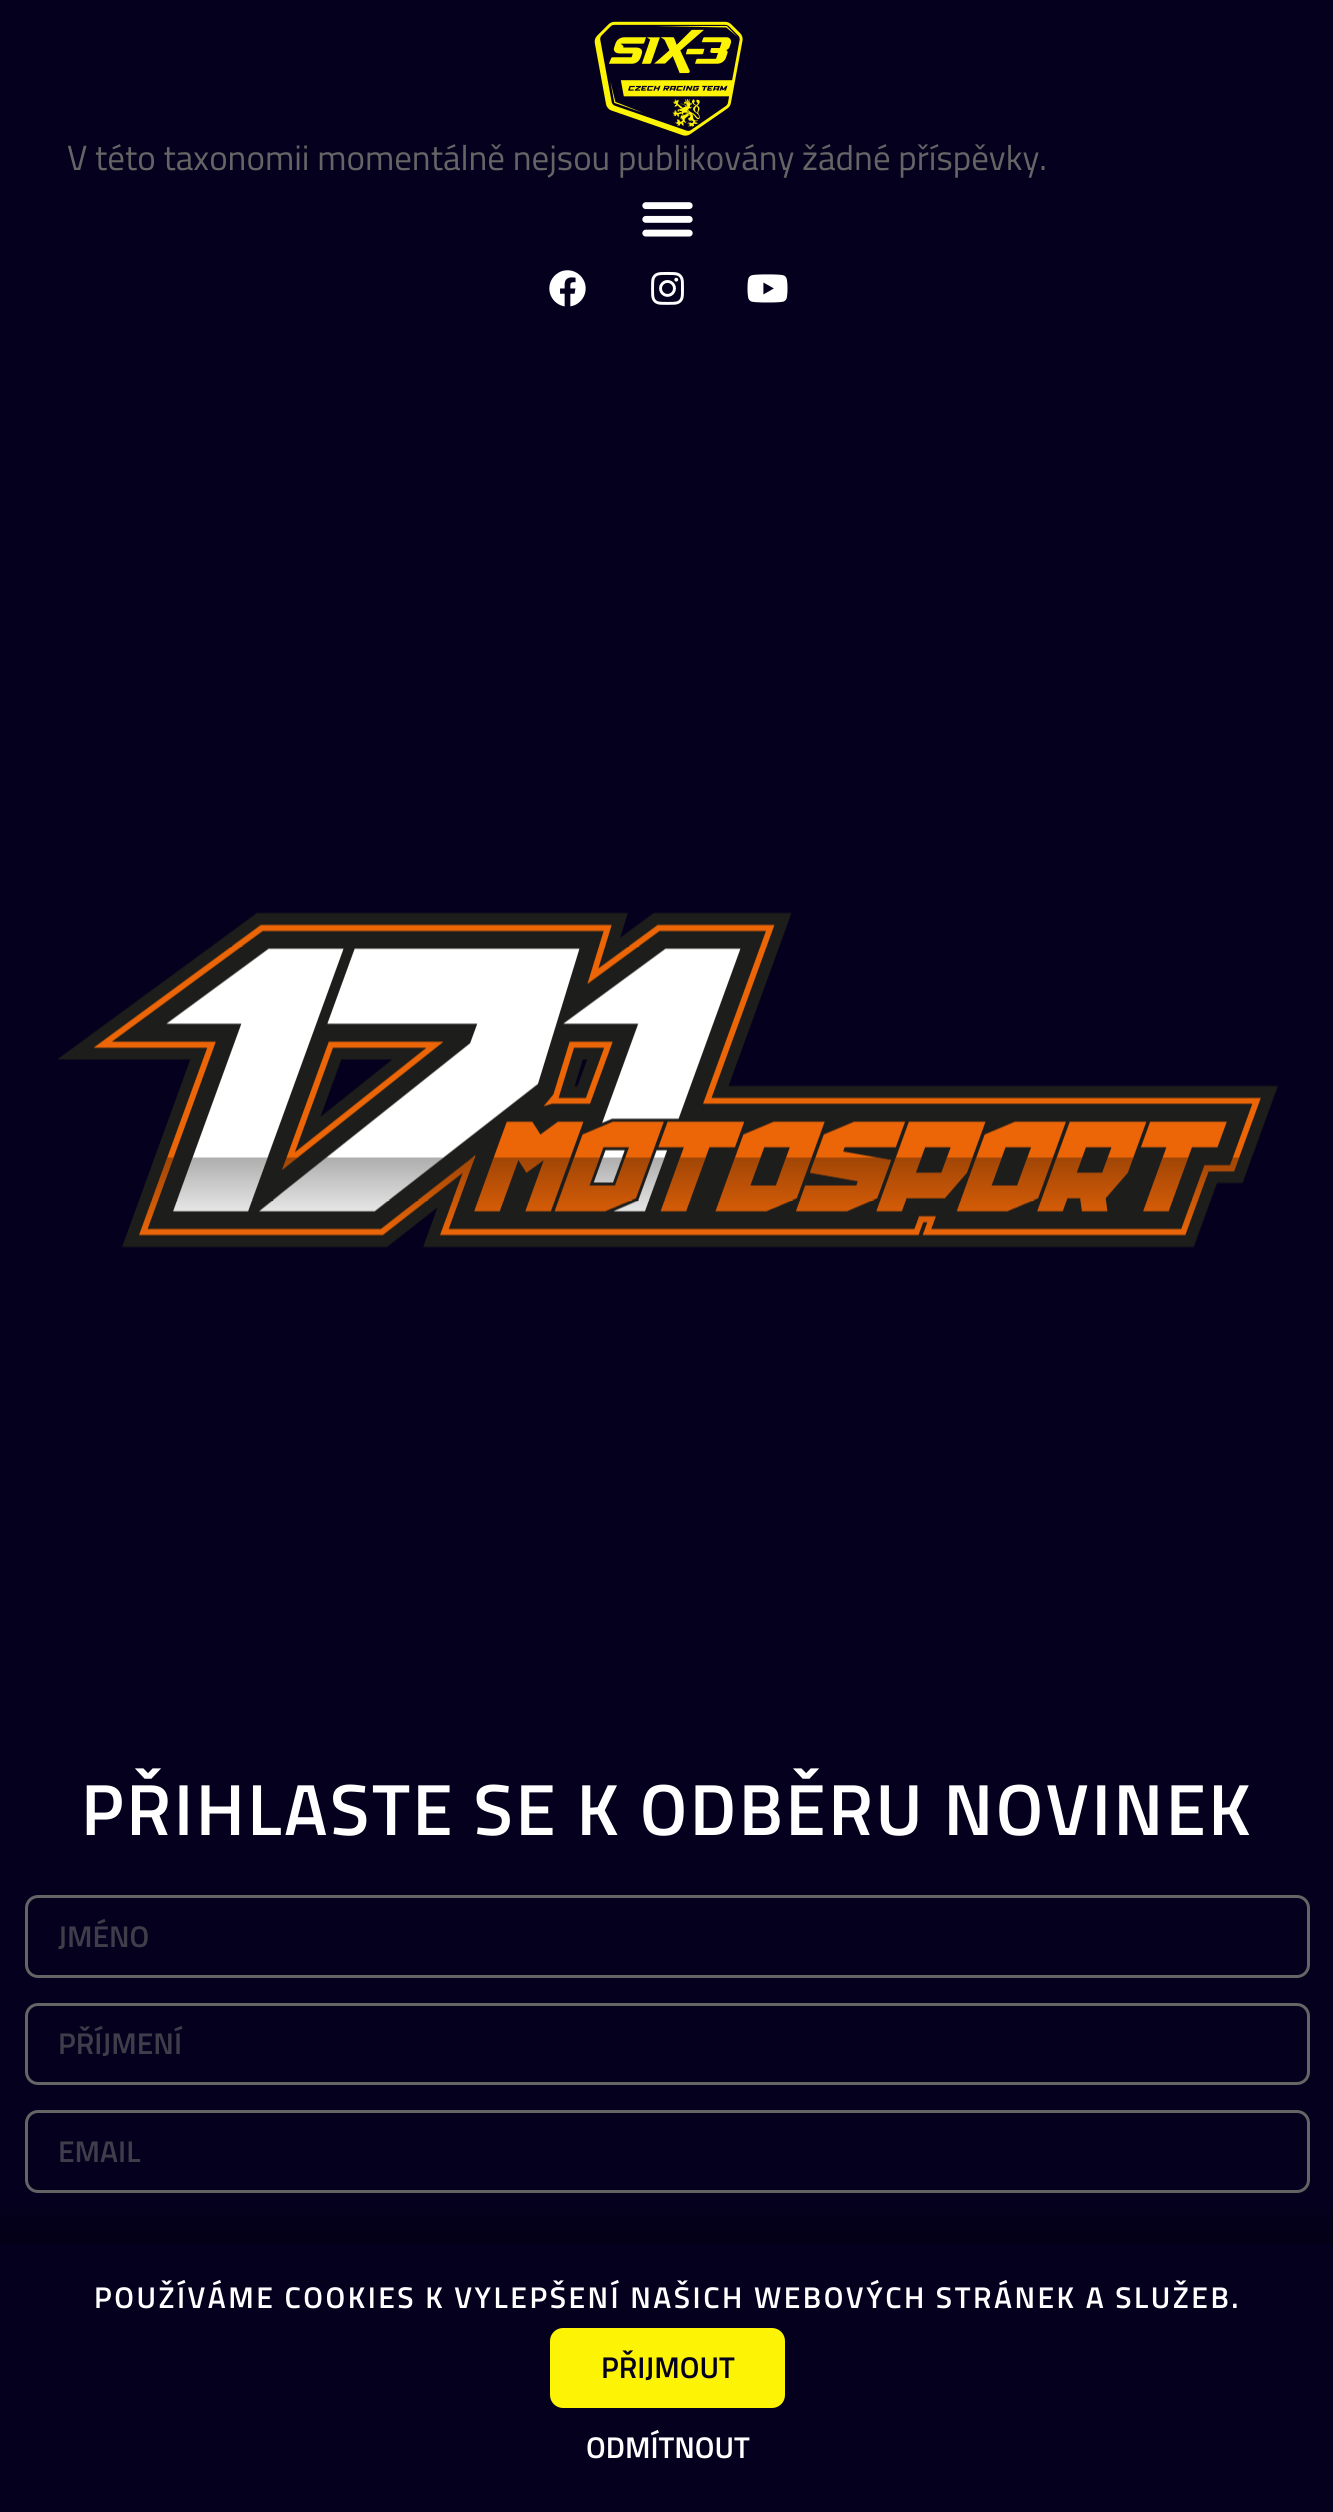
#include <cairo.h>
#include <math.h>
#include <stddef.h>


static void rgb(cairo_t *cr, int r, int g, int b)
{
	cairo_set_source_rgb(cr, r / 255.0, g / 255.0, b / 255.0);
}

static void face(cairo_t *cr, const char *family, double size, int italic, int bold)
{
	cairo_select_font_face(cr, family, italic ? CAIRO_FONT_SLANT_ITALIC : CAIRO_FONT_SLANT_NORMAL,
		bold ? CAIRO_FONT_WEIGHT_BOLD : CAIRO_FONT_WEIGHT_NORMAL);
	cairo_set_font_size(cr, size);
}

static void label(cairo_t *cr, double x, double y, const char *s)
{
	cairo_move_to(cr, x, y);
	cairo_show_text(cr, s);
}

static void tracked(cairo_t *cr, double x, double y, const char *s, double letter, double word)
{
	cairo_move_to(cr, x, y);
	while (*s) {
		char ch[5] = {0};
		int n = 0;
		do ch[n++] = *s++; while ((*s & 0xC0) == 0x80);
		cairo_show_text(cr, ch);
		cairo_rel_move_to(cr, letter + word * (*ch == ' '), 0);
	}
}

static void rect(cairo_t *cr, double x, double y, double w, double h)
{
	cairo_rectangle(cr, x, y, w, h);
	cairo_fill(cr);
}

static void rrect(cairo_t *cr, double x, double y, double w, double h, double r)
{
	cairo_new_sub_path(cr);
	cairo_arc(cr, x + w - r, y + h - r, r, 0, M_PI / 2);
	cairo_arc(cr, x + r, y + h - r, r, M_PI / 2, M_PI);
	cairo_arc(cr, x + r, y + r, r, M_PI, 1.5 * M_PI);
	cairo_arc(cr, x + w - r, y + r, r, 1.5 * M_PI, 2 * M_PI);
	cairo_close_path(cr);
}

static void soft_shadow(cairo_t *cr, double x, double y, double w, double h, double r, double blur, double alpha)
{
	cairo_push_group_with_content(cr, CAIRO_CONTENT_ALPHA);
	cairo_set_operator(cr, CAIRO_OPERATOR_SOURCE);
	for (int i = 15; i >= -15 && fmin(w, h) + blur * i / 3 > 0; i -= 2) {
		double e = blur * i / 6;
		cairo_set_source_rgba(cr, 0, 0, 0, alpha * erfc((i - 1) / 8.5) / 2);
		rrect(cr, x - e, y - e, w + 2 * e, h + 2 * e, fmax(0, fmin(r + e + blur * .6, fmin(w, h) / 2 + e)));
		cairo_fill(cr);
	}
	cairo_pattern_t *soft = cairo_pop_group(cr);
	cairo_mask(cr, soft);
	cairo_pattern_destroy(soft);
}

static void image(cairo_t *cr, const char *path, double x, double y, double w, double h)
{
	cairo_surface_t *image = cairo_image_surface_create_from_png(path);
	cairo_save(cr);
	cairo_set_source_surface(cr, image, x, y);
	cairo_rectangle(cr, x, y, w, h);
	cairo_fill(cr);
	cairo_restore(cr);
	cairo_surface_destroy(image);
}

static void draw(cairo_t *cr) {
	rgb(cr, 5, 0, 30);
	cairo_paint(cr);
	image(cr, "image0.png", 594, 21, 149, 115);
	image(cr, "image1.png", 642, 202, 51, 35);
	image(cr, "image2.png", 549, 270, 37, 37);
	image(cr, "image3.png", 651, 271, 33, 34);
	image(cr, "image4.png", 747, 274, 41, 29);
	face(cr, "Titillium Web", 35, 0, 0);
	rgb(cr, 101, 101, 101);
	label(cr, 67, 170, "V této taxonomii momentálně nejsou publikovány žádné příspěvky.");
	image(cr, "image5.png", 58, 912, 1220, 336);
	face(cr, "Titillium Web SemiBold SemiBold", 72.5, 0, 0);
	rgb(cr, 255, 255, 255);
	tracked(cr, 81, 1835, "PŘIHLASTE SE K ODBĚRU NOVINEK", 2.5, 0);
	rrect(cr, 26.5, 1896.5, 1282, 80, 11.5);
	rgb(cr, 101, 101, 101);
	cairo_set_line_width(cr, 3);
	cairo_stroke(cr);
	face(cr, "Titillium Web SemiBold SemiBold", 30, 0, 0);
	rgb(cr, 63, 61, 73);
	label(cr, 58, 1947, "JMÉNO");
	rrect(cr, 26.5, 2004.5, 1282, 79, 11.5);
	rgb(cr, 101, 101, 101);
	cairo_stroke(cr);
	rgb(cr, 63, 61, 73);
	label(cr, 58, 2054, "PŘÍJMENÍ");
	rrect(cr, 26.5, 2111.5, 1282, 80, 11.5);
	rgb(cr, 101, 101, 101);
	cairo_stroke(cr);
	rgb(cr, 63, 61, 73);
	label(cr, 58, 2162, "EMAIL");
	rgb(cr, 0, 0, 0);
	soft_shadow(cr, -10, 2258, 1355, 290, 0, 35, 0.77);
	rgb(cr, 5, 0, 30);
	rect(cr, 0, 2243, 1333, 269);
	rgb(cr, 255, 255, 255);
	tracked(cr, 94, 2308, "POUŽÍVÁME COOKIES K VYLEPŠENÍ NAŠICH WEBOVÝCH STRÁNEK A SLUŽEB.", 2.5, 0);
	rgb(cr, 252, 244, 4);
	rrect(cr, 550, 2328, 235, 80, 13);
	cairo_fill(cr);
	rgb(cr, 5, 0, 30);
	label(cr, 601, 2378, "PŘIJMOUT");
	rgb(cr, 255, 255, 255);
	label(cr, 586, 2458, "ODMÍTNOUT");
}

int main(void) {
	cairo_surface_t *surface = cairo_image_surface_create(CAIRO_FORMAT_RGB24, 1333, 2512);
	cairo_t *cr = cairo_create(surface);
	cairo_font_options_t *options = cairo_font_options_create();
	cairo_font_options_set_hint_metrics(options, CAIRO_HINT_METRICS_OFF);
	cairo_font_options_set_hint_style(options, CAIRO_HINT_STYLE_NONE);
	cairo_set_font_options(cr, options);
	cairo_set_miter_limit(cr, 4);
	draw(cr);
	cairo_surface_write_to_png(surface, "render.png");
	cairo_font_options_destroy(options);
	cairo_destroy(cr);
	cairo_surface_destroy(surface);
	return 0;
}
